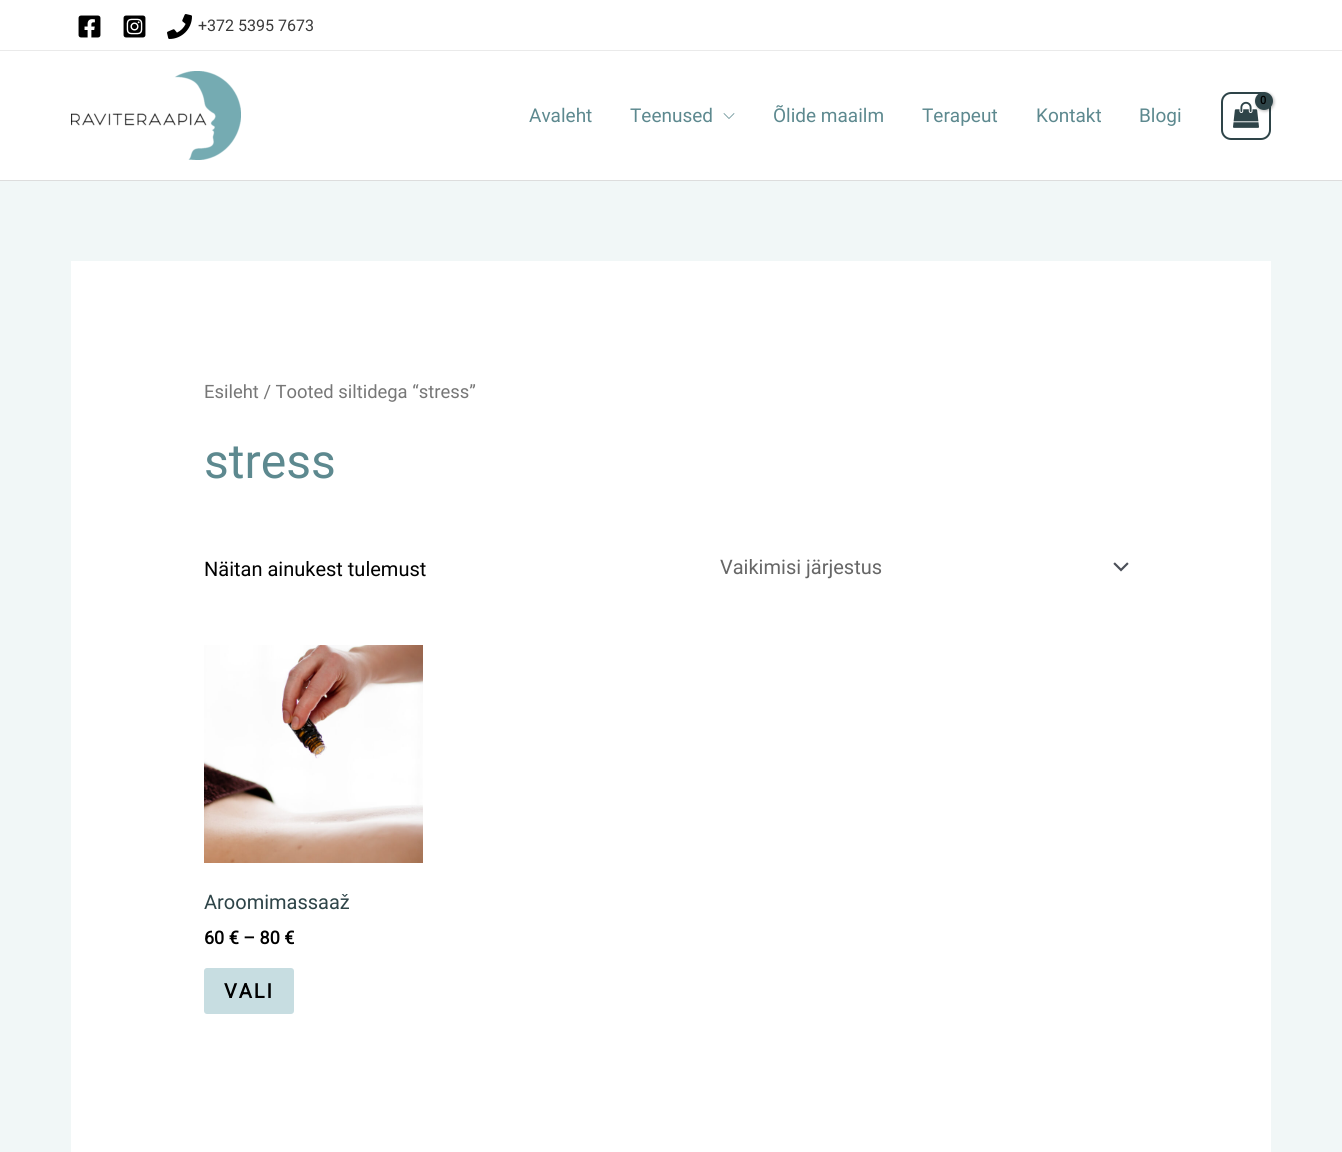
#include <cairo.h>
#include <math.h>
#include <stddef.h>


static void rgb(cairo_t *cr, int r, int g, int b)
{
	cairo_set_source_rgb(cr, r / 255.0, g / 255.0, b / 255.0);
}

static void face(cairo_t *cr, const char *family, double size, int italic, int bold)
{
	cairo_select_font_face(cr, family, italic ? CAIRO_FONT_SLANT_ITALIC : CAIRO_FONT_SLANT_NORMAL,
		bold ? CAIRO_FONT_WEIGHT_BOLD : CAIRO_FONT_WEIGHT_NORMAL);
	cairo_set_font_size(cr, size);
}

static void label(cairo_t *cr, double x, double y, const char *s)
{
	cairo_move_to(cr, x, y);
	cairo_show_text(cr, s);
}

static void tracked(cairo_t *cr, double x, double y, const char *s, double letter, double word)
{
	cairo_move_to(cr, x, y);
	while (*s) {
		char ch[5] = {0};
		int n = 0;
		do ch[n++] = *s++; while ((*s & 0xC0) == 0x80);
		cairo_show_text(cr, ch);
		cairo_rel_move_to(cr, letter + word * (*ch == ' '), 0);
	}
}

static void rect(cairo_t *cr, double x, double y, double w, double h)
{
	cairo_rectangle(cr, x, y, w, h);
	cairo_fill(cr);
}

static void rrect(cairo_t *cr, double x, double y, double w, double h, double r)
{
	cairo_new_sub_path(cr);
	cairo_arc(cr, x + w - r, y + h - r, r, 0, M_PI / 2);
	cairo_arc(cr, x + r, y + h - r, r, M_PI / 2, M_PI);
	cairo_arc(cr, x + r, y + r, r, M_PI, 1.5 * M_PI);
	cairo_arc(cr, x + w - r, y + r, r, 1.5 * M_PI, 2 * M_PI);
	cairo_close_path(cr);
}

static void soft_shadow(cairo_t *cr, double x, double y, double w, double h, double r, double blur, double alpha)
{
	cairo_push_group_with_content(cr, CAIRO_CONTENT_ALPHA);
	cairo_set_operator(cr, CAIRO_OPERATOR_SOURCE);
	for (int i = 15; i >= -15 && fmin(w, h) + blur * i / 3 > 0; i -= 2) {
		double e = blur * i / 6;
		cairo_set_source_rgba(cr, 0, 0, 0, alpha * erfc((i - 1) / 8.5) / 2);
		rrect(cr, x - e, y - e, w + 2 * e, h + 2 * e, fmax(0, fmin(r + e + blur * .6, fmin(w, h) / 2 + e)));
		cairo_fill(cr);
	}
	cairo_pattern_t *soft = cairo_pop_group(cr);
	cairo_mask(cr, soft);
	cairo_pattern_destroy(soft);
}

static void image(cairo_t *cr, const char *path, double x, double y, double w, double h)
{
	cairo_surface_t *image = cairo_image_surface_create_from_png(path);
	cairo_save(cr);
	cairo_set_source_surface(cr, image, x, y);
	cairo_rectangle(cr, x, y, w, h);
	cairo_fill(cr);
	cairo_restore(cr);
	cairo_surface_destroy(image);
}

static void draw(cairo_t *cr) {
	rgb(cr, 241, 247, 247);
	cairo_paint(cr);
	rgb(cr, 255, 255, 255);
	rect(cr, 0, 0, 1342, 50);
	rgb(cr, 234, 234, 234);
	rect(cr, 0, 50, 1342, 1);
	image(cr, "image0.png", 78, 15, 23, 23);
	image(cr, "image1.png", 123, 15, 23, 23);
	image(cr, "image2.png", 167, 14, 25, 25);
	face(cr, "Roboto", 16, 0, 0);
	rgb(cr, 58, 58, 58);
	label(cr, 198, 31, "+372 5395 7673");
	rgb(cr, 255, 255, 255);
	rect(cr, 0, 51, 1342, 129);
	rgb(cr, 221, 221, 221);
	rect(cr, 0, 180, 1342, 1);
	image(cr, "image3.png", 71, 71, 170, 89);
	rrect(cr, 1222, 93, 48, 46, 9);
	rgb(cr, 46, 68, 72);
	cairo_stroke(cr);
	image(cr, "image4.png", 1233, 101, 26, 27);
	rgb(cr, 0, 0, 0);
	soft_shadow(cr, 1256, 93, 18, 18, 9, 1.5, 0.3);
	rgb(cr, 46, 68, 72);
	cairo_arc(cr, 1264, 101, 9, 0, 2 * M_PI);
	cairo_fill(cr);
	face(cr, "Roboto", 11, 0, 1);
	rgb(cr, 0, 0, 0);
	label(cr, 1260, 104, "0");
	face(cr, "Roboto", 19, 0, 0);
	rgb(cr, 93, 137, 143);
	label(cr, 529, 122, "Avaleht");
	label(cr, 630, 122, "Teenused");
	image(cr, "image5.png", 723, 113, 12, 6);
	label(cr, 773, 122, "Õlide maailm");
	label(cr, 922, 122, "Terapeut");
	label(cr, 1036, 122, "Kontakt");
	label(cr, 1139, 122, "Blogi");
	rgb(cr, 255, 255, 255);
	rect(cr, 71, 261, 1200, 891);
	face(cr, "Roboto", 18.4, 0, 0);
	rgb(cr, 119, 119, 119);
	label(cr, 204, 398, "Esileht / Tooted siltidega “stress”");
	face(cr, "Roboto", 48, 0, 0);
	rgb(cr, 93, 137, 143);
	label(cr, 204, 478, "stress");
	face(cr, "Roboto", 20, 0, 0);
	rgb(cr, 0, 0, 0);
	label(cr, 204, 576, "Näitan ainukest tulemust");
	image(cr, "image6.png", 1113, 562, 16, 10);
	rgb(cr, 102, 102, 102);
	label(cr, 720, 574, "Vaikimisi järjestus");
	image(cr, "image7.png", 204, 645, 219, 218);
	rgb(cr, 46, 68, 72);
	label(cr, 204, 909, "Aroomimassaaž");
	face(cr, "Roboto", 18, 0, 1);
	rgb(cr, 0, 0, 0);
	label(cr, 204, 944, "60 € – 80 €");
	rgb(cr, 199, 221, 225);
	rrect(cr, 204, 968, 90, 46, 3);
	cairo_fill(cr);
	face(cr, "Roboto", 20, 0, 1);
	rgb(cr, 0, 0, 0);
	tracked(cr, 224, 998, "VALI", 2, 0);
}

int main(void) {
	cairo_surface_t *surface = cairo_image_surface_create(CAIRO_FORMAT_RGB24, 1342, 1152);
	cairo_t *cr = cairo_create(surface);
	cairo_font_options_t *options = cairo_font_options_create();
	cairo_font_options_set_hint_metrics(options, CAIRO_HINT_METRICS_OFF);
	cairo_font_options_set_hint_style(options, CAIRO_HINT_STYLE_NONE);
	cairo_set_font_options(cr, options);
	cairo_set_miter_limit(cr, 4);
	draw(cr);
	cairo_surface_write_to_png(surface, "render.png");
	cairo_font_options_destroy(options);
	cairo_destroy(cr);
	cairo_surface_destroy(surface);
	return 0;
}
